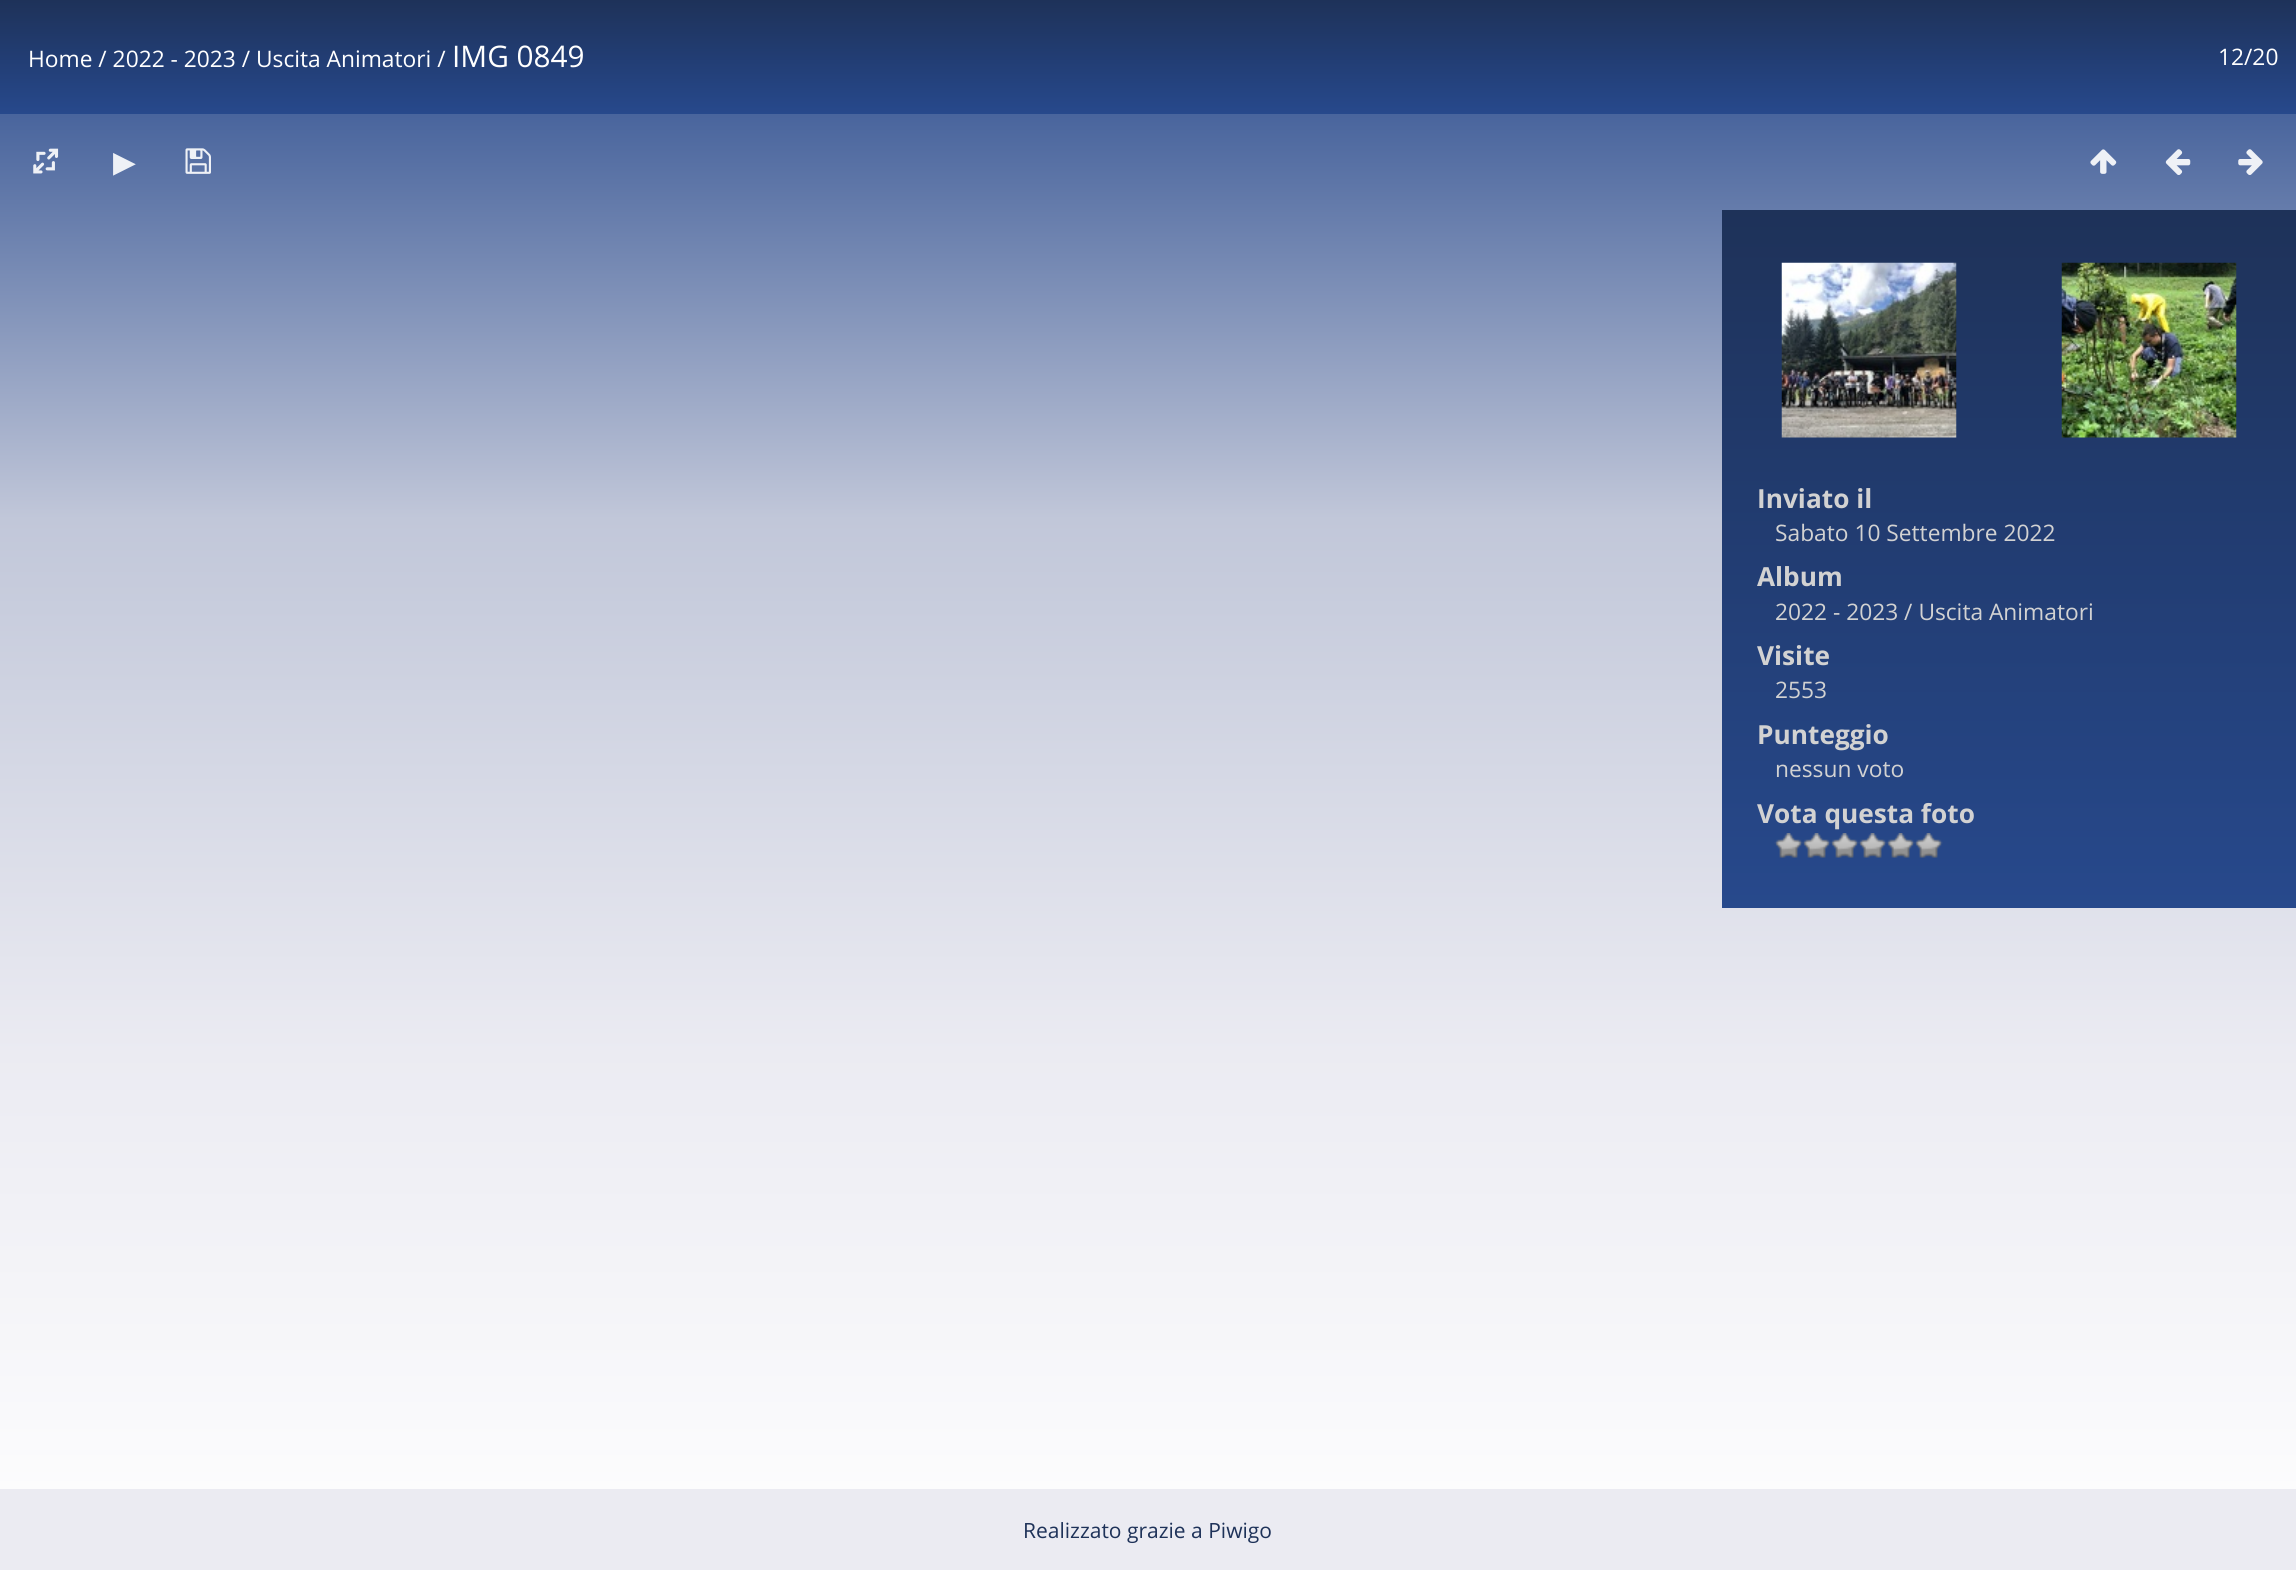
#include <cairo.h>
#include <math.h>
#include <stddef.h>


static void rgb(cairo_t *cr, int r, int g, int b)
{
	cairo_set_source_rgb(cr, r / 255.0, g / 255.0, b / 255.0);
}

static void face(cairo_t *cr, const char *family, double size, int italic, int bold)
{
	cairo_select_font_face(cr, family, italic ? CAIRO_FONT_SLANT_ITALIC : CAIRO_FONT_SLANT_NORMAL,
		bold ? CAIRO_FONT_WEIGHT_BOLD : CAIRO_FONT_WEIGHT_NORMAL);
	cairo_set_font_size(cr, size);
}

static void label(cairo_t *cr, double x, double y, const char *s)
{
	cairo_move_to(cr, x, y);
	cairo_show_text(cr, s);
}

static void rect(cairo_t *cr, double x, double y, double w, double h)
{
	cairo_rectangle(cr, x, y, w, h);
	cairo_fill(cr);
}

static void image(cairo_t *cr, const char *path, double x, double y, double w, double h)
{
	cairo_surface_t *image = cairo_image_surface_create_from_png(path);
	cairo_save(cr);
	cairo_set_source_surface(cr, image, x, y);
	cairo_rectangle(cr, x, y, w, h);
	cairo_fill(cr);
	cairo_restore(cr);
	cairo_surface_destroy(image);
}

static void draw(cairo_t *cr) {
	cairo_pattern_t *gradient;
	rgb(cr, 255, 255, 255);
	cairo_paint(cr);
	gradient = cairo_pattern_create_linear(1148, 0, 1148, 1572);
	cairo_pattern_add_color_stop_rgba(gradient, 0, 0.153, 0.286, 0.549, 1);
	cairo_pattern_add_color_stop_rgba(gradient, 0.33, 0.757, 0.78, 0.851, 1);
	cairo_pattern_add_color_stop_rgba(gradient, 0.67, 0.922, 0.922, 0.949, 1);
	cairo_pattern_add_color_stop_rgba(gradient, 1, 1, 1, 1, 1);
	cairo_set_source(cr, gradient);
	cairo_pattern_destroy(gradient);
	rect(cr, 0, 114, 2296, 1375);
	gradient = cairo_pattern_create_linear(1148, 0, 1148, 114);
	cairo_pattern_add_color_stop_rgba(gradient, 0, 0.118, 0.196, 0.349, 1);
	cairo_pattern_add_color_stop_rgba(gradient, 0.5, 0.133, 0.239, 0.451, 1);
	cairo_pattern_add_color_stop_rgba(gradient, 1, 0.153, 0.286, 0.549, 1);
	cairo_set_source(cr, gradient);
	cairo_pattern_destroy(gradient);
	rect(cr, 0, 0, 2296, 114);
	face(cr, "Open Sans", 22.75, 0, 0);
	rgb(cr, 255, 255, 255);
	label(cr, 28, 67, "Home / 2022 - 2023 / Uscita Animatori /");
	face(cr, "Open Sans", 29.75, 0, 0);
	label(cr, 452, 67, "IMG 0849");
	face(cr, "Open Sans", 22.75, 0, 0);
	label(cr, 2218, 65, "12/20");
	image(cr, "image0.png", 33, 148, 26, 26);
	face(cr, "DejaVu Sans", 29.75, 0, 0);
	rgb(cr, 238, 241, 246);
	label(cr, 113, 172, "▶");
	image(cr, "image1.png", 185, 148, 26, 26);
	image(cr, "image2.png", 2090, 149, 27, 25);
	image(cr, "image3.png", 2165, 149, 26, 26);
	image(cr, "image4.png", 2238, 149, 25, 26);
	gradient = cairo_pattern_create_linear(2009, 210, 2009, 908);
	cairo_pattern_add_color_stop_rgba(gradient, 0, 0.118, 0.196, 0.349, 1);
	cairo_pattern_add_color_stop_rgba(gradient, 0.5, 0.133, 0.239, 0.451, 1);
	cairo_pattern_add_color_stop_rgba(gradient, 1, 0.153, 0.286, 0.549, 1);
	cairo_set_source(cr, gradient);
	cairo_pattern_destroy(gradient);
	rect(cr, 1722, 210, 574, 698);
	image(cr, "image5.png", 1781, 262, 176, 176);
	image(cr, "image6.png", 2061, 262, 176, 176);
	face(cr, "Open Sans", 26.25, 0, 1);
	rgb(cr, 210, 210, 210);
	label(cr, 1757, 508, "Inviato il");
	face(cr, "Open Sans", 22.75, 0, 0);
	label(cr, 1775, 541, "Sabato 10 Settembre 2022");
	face(cr, "Open Sans", 26.25, 0, 1);
	label(cr, 1757, 586, "Album");
	face(cr, "Open Sans", 22.75, 0, 0);
	label(cr, 1775, 620, "2022 - 2023 / Uscita Animatori");
	face(cr, "Open Sans", 26.25, 0, 1);
	label(cr, 1757, 665, "Visite");
	face(cr, "Open Sans", 22.75, 0, 0);
	label(cr, 1775, 698, "2553");
	face(cr, "Open Sans", 26.25, 0, 1);
	label(cr, 1757, 744, "Punteggio");
	face(cr, "Open Sans", 22.75, 0, 0);
	label(cr, 1775, 777, "nessun voto");
	face(cr, "Open Sans", 26.25, 0, 1);
	label(cr, 1757, 823, "Vota questa foto");
	image(cr, "image7.png", 1774, 833, 29, 25);
	image(cr, "image8.png", 1802, 833, 29, 25);
	image(cr, "image8.png", 1830, 833, 29, 25);
	image(cr, "image9.png", 1858, 833, 29, 25);
	image(cr, "image9.png", 1886, 833, 29, 25);
	image(cr, "image10.png", 1914, 833, 29, 25);
	rgb(cr, 235, 235, 242);
	rect(cr, 0, 1489, 2296, 81);
	face(cr, "Open Sans", 21, 0, 0);
	rgb(cr, 30, 50, 89);
	label(cr, 1023, 1538, "Realizzato grazie a Piwigo");
}

int main(void) {
	cairo_surface_t *surface = cairo_image_surface_create(CAIRO_FORMAT_RGB24, 2296, 1570);
	cairo_t *cr = cairo_create(surface);
	cairo_font_options_t *options = cairo_font_options_create();
	cairo_font_options_set_hint_metrics(options, CAIRO_HINT_METRICS_OFF);
	cairo_font_options_set_hint_style(options, CAIRO_HINT_STYLE_NONE);
	cairo_set_font_options(cr, options);
	cairo_set_miter_limit(cr, 4);
	draw(cr);
	cairo_surface_write_to_png(surface, "render.png");
	cairo_font_options_destroy(options);
	cairo_destroy(cr);
	cairo_surface_destroy(surface);
	return 0;
}
